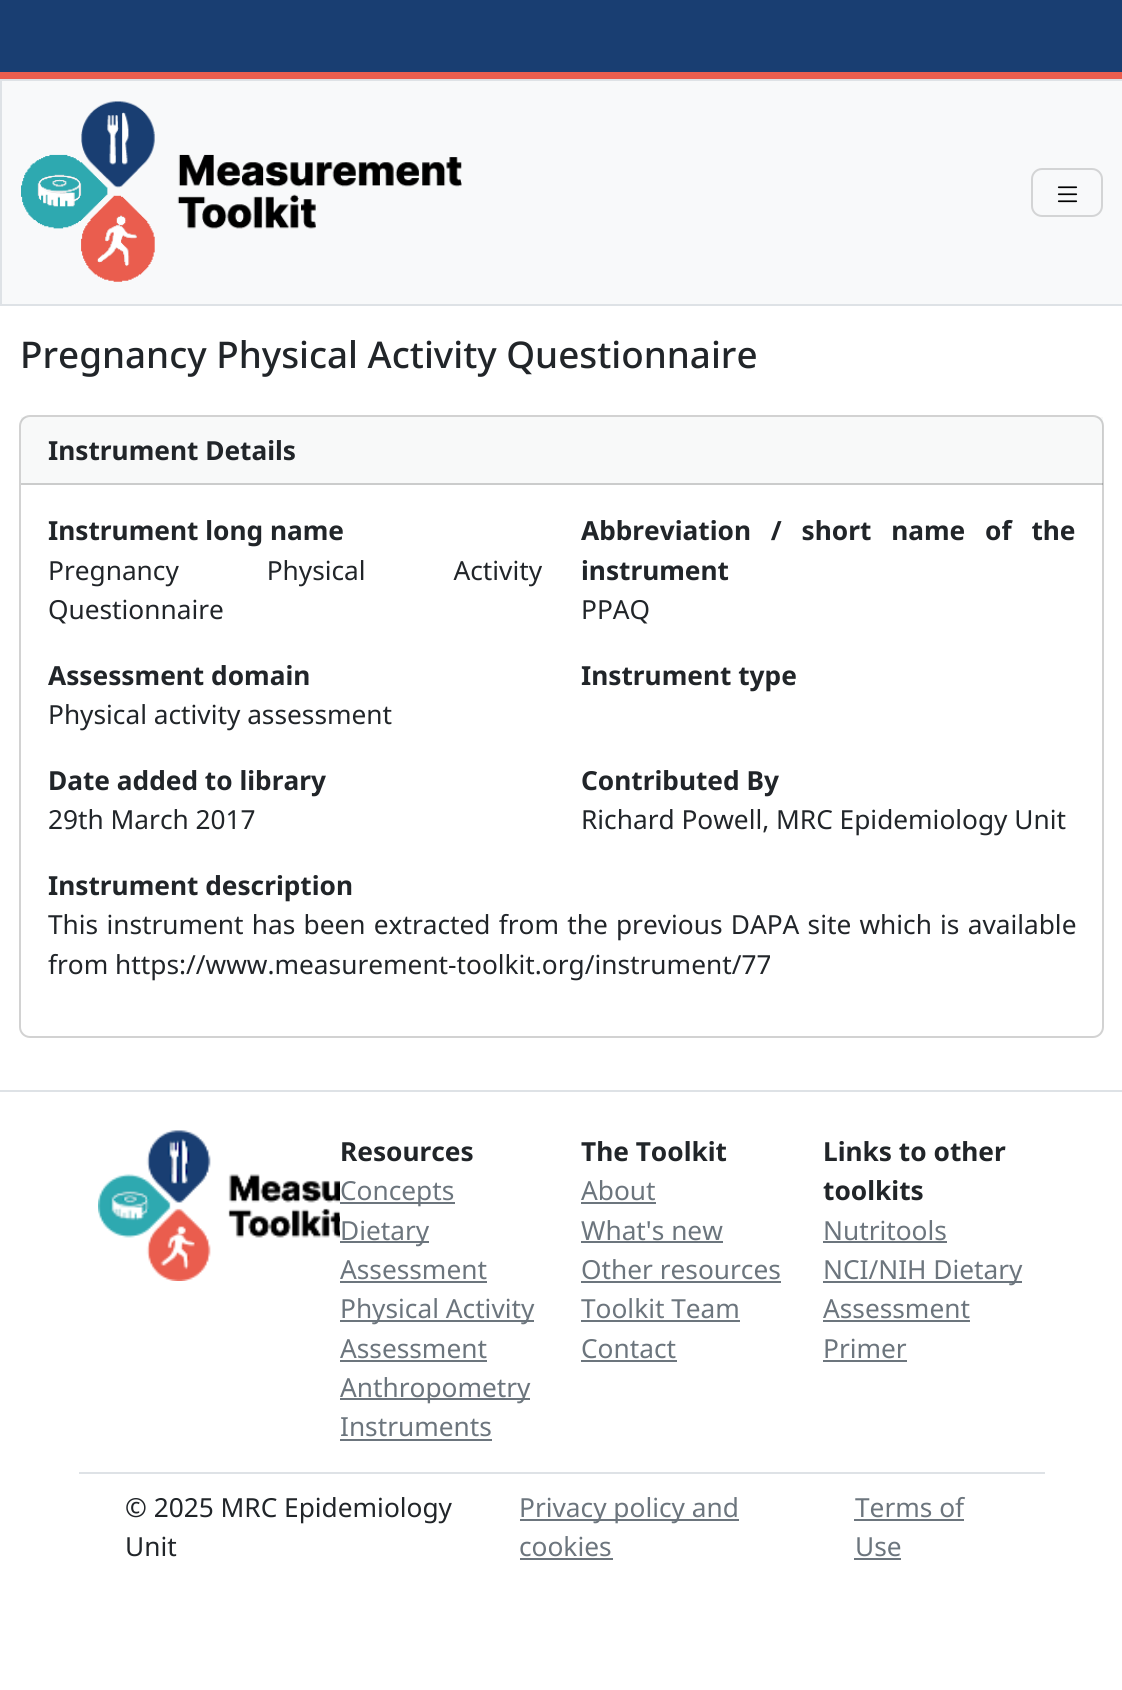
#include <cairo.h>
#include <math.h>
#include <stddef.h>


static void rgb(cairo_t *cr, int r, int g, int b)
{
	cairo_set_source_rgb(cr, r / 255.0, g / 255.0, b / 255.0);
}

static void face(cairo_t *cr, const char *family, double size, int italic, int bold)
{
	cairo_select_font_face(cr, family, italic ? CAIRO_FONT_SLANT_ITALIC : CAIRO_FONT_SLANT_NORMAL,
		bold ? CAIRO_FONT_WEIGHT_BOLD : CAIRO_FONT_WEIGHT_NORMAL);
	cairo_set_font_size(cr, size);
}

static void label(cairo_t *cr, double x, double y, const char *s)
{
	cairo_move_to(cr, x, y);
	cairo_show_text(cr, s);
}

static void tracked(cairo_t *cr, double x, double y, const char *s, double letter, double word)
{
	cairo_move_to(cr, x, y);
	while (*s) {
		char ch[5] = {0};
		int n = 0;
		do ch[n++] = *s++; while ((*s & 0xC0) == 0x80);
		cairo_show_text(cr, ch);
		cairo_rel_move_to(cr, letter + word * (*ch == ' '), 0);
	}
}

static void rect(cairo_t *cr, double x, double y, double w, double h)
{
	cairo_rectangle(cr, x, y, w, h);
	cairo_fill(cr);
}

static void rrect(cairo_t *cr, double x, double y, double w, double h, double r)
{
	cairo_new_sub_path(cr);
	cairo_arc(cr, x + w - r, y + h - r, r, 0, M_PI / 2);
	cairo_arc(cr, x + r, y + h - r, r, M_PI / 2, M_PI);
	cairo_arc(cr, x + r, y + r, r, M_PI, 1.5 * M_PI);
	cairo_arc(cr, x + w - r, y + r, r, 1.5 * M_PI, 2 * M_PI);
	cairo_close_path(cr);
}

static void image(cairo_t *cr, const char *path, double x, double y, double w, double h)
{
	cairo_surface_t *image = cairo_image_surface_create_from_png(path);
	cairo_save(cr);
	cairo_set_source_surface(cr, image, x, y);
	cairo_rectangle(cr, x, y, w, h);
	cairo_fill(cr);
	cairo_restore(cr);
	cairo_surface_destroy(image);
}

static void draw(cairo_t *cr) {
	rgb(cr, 255, 255, 255);
	cairo_paint(cr);
	rgb(cr, 25, 62, 114);
	rect(cr, 0, 0, 1122, 72);
	rgb(cr, 234, 93, 78);
	rect(cr, 0, 72, 1122, 7);
	rgb(cr, 248, 249, 250);
	cairo_rectangle(cr, 1, 80, 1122, 225);
	cairo_fill_preserve(cr);
	rgb(cr, 222, 226, 230);
	cairo_stroke(cr);
	image(cr, "image0.png", 21, 101, 441, 181);
	rrect(cr, 1032, 169, 70, 47, 10);
	rgb(cr, 211, 212, 213);
	cairo_stroke(cr);
	image(cr, "image1.png", 1057, 186, 21, 17);
	face(cr, "Noto Sans Medium", 36.8, 0, 0);
	rgb(cr, 33, 37, 41);
	label(cr, 20, 368, "Pregnancy Physical Activity Questionnaire");
	rrect(cr, 20, 416, 1083, 621, 10);
	rgb(cr, 210, 210, 210);
	cairo_stroke(cr);
	cairo_set_source_rgba(cr, 0.129, 0.145, 0.161, 0.03);
	rect(cr, 21, 417, 1082, 68);
	cairo_set_source_rgba(cr, 0, 0, 0, 0.18);
	rect(cr, 21, 483, 1082, 2);
	face(cr, "Noto Sans", 26.25, 0, 1);
	rgb(cr, 33, 37, 41);
	label(cr, 48, 460, "Instrument Details");
	label(cr, 48, 540, "Instrument long name");
	face(cr, "Noto Sans", 26.25, 0, 0);
	tracked(cr, 48, 580, "Pregnancy Physical Activity", 0, 81);
	label(cr, 48, 619, "Questionnaire");
	face(cr, "Noto Sans", 26.25, 0, 1);
	tracked(cr, 581, 540, "Abbreviation / short name of the", 0, 13);
	label(cr, 581, 580, "instrument");
	face(cr, "Noto Sans", 26.25, 0, 0);
	label(cr, 581, 619, "PPAQ");
	face(cr, "Noto Sans", 26.25, 0, 1);
	label(cr, 48, 685, "Assessment domain");
	face(cr, "Noto Sans", 26.25, 0, 0);
	label(cr, 48, 724, "Physical activity assessment");
	face(cr, "Noto Sans", 26.25, 0, 1);
	label(cr, 581, 685, "Instrument type");
	label(cr, 48, 790, "Date added to library");
	face(cr, "Noto Sans", 26.25, 0, 0);
	label(cr, 48, 829, "29th March 2017");
	face(cr, "Noto Sans", 26.25, 0, 1);
	label(cr, 581, 790, "Contributed By");
	face(cr, "Noto Sans", 26.25, 0, 0);
	label(cr, 581, 829, "Richard Powell, MRC Epidemiology Unit");
	face(cr, "Noto Sans", 26.25, 0, 1);
	label(cr, 48, 895, "Instrument description");
	face(cr, "Noto Sans", 26.25, 0, 0);
	tracked(cr, 48, 934, "This instrument has been extracted from the previous DAPA site which is available", 0, 1.4);
	label(cr, 48, 974, "from https://www.measurement-toolkit.org/instrument/77");
	rgb(cr, 222, 226, 230);
	rect(cr, 0, 1090, 1122, 2);
	image(cr, "image2.png", 98, 1130, 242, 151);
	face(cr, "Noto Sans", 26.25, 0, 1);
	rgb(cr, 33, 37, 41);
	label(cr, 340, 1161, "Resources");
	rgb(cr, 108, 117, 125);
	rect(cr, 340, 1202, 115, 2);
	face(cr, "Noto Sans", 26.25, 0, 0);
	label(cr, 340, 1200, "Concepts");
	rect(cr, 340, 1241, 89, 2);
	label(cr, 340, 1240, "Dietary");
	label(cr, 340, 1279, "Assessment");
	rect(cr, 340, 1281, 147, 2);
	rect(cr, 340, 1320, 194, 2);
	label(cr, 340, 1318, "Physical Activity");
	label(cr, 340, 1358, "Assessment");
	rect(cr, 340, 1360, 147, 2);
	rect(cr, 340, 1398, 190, 2);
	label(cr, 340, 1397, "Anthropometry");
	label(cr, 340, 1436, "Instruments");
	rect(cr, 340, 1439, 152, 2);
	face(cr, "Noto Sans", 26.25, 0, 1);
	rgb(cr, 33, 37, 41);
	label(cr, 581, 1161, "The Toolkit");
	face(cr, "Noto Sans", 26.25, 0, 0);
	rgb(cr, 108, 117, 125);
	label(cr, 581, 1200, "About");
	rect(cr, 581, 1202, 75, 2);
	label(cr, 581, 1240, "What's new");
	rect(cr, 581, 1241, 142, 2);
	label(cr, 581, 1279, "Other resources");
	rect(cr, 581, 1281, 200, 2);
	label(cr, 581, 1318, "Toolkit Team");
	rect(cr, 581, 1320, 159, 2);
	label(cr, 581, 1358, "Contact");
	rect(cr, 581, 1360, 96, 2);
	face(cr, "Noto Sans", 26.25, 0, 1);
	rgb(cr, 33, 37, 41);
	label(cr, 823, 1161, "Links to other");
	label(cr, 823, 1200, "toolkits");
	face(cr, "Noto Sans", 26.25, 0, 0);
	rgb(cr, 108, 117, 125);
	label(cr, 823, 1240, "Nutritools");
	rect(cr, 823, 1241, 124, 2);
	rect(cr, 823, 1281, 199, 2);
	label(cr, 823, 1279, "NCI/NIH Dietary");
	label(cr, 823, 1318, "Assessment");
	rect(cr, 823, 1320, 147, 2);
	label(cr, 823, 1358, "Primer");
	rect(cr, 823, 1360, 84, 2);
	rgb(cr, 222, 226, 230);
	rect(cr, 79, 1472, 966, 2);
	rgb(cr, 33, 37, 41);
	label(cr, 125, 1517, "© 2025 MRC Epidemiology");
	label(cr, 125, 1556, "Unit");
	rgb(cr, 108, 117, 125);
	rect(cr, 520, 1519, 219, 2);
	label(cr, 519, 1517, "Privacy policy and");
	label(cr, 519, 1556, "cookies");
	rect(cr, 520, 1558, 93, 2);
	label(cr, 855, 1517, "Terms of");
	rect(cr, 854, 1519, 110, 2);
	label(cr, 855, 1556, "Use");
	rect(cr, 854, 1558, 47, 2);
}

int main(void) {
	cairo_surface_t *surface = cairo_image_surface_create(CAIRO_FORMAT_RGB24, 1122, 1690);
	cairo_t *cr = cairo_create(surface);
	cairo_font_options_t *options = cairo_font_options_create();
	cairo_font_options_set_hint_metrics(options, CAIRO_HINT_METRICS_OFF);
	cairo_font_options_set_hint_style(options, CAIRO_HINT_STYLE_NONE);
	cairo_set_font_options(cr, options);
	cairo_set_miter_limit(cr, 4);
	draw(cr);
	cairo_surface_write_to_png(surface, "render.png");
	cairo_font_options_destroy(options);
	cairo_destroy(cr);
	cairo_surface_destroy(surface);
	return 0;
}
